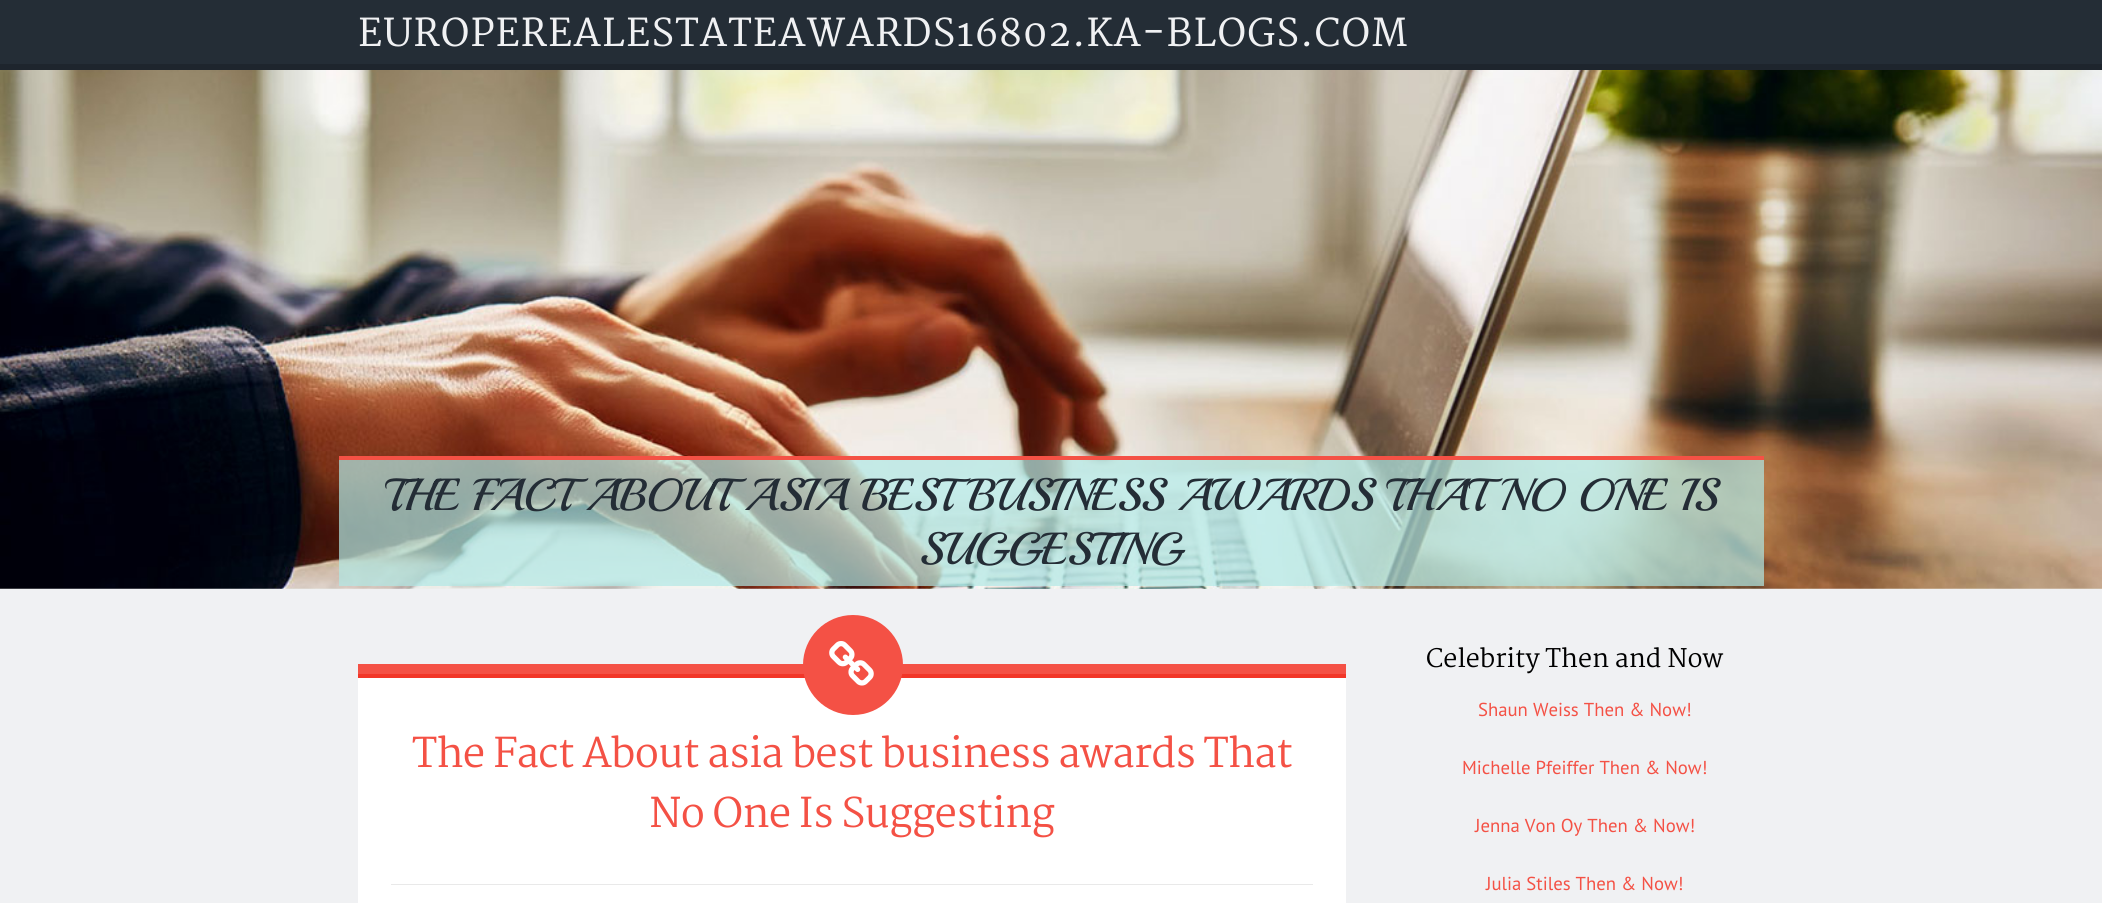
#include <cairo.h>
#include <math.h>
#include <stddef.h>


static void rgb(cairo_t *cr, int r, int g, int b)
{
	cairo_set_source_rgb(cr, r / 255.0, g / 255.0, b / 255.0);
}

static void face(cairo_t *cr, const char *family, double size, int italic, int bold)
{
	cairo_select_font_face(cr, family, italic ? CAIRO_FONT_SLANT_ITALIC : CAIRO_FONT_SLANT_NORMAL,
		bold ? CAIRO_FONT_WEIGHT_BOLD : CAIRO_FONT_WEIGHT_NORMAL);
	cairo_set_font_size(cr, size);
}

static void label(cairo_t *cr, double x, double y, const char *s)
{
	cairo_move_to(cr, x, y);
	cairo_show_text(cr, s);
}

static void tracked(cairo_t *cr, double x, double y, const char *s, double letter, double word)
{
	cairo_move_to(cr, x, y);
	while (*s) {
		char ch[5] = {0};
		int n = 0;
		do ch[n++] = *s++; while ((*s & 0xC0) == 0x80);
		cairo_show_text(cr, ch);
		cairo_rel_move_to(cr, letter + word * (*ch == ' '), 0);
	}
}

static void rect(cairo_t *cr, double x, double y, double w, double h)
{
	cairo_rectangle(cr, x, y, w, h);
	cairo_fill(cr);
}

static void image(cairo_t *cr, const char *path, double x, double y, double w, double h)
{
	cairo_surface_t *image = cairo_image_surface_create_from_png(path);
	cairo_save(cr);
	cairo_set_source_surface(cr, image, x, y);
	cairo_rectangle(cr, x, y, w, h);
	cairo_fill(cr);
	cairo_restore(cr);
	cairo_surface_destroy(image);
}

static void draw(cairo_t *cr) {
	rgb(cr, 240, 241, 243);
	cairo_paint(cr);
	rgb(cr, 36, 45, 54);
	rect(cr, 0, 0, 2102, 64);
	rgb(cr, 30, 37, 45);
	rect(cr, 0, 64, 2102, 6);
	face(cr, "Martel SemiBold", 37.5, 0, 0);
	rgb(cr, 240, 241, 243);
	tracked(cr, 358, 46, "EUROPEREALESTATEAWARDS16802.KA-BLOGS.COM", 1.25, 0);
	image(cr, "image0.png", 0, 70, 2102, 519);
	cairo_set_source_rgba(cr, 0.694, 0.91, 0.902, 0.7);
	rect(cr, 339, 460, 1425, 126);
	rgb(cr, 244, 81, 69);
	rect(cr, 339, 456, 1425, 4);
	face(cr, "Playball", 45, 0, 0);
	rgb(cr, 36, 45, 54);
	label(cr, 385, 510, "THE FACT ABOUT ASIA BEST BUSINESS AWARDS THAT NO ONE IS");
	label(cr, 919, 564, "SUGGESTING");
	rgb(cr, 255, 255, 255);
	rect(cr, 358, 678, 988, 225);
	rgb(cr, 244, 81, 69);
	rect(cr, 358, 664, 988, 10);
	rgb(cr, 242, 54, 40);
	rect(cr, 358, 674, 988, 4);
	rgb(cr, 244, 81, 69);
	cairo_new_path(cr);
	cairo_arc(cr, 853, 665, 50, 0, 2 * M_PI);
	cairo_fill(cr);
	image(cr, "image1.png", 829, 641, 45, 45);
	face(cr, "Martel", 40, 0, 0);
	tracked(cr, 412, 767, "The Fact About asia best business awards That", -0.75, 0);
	tracked(cr, 649, 827, "No One Is Suggesting", -0.75, 0);
	rgb(cr, 233, 233, 233);
	rect(cr, 391, 884, 922, 1);
	face(cr, "Martel", 25, 0, 0);
	rgb(cr, 0, 0, 0);
	label(cr, 1426, 667, "Celebrity Then and Now");
	face(cr, "PT Sans", 18.75, 0, 0);
	rgb(cr, 244, 81, 69);
	label(cr, 1478, 716, "Shaun Weiss Then & Now!");
	label(cr, 1462, 774, "Michelle Pfeiffer Then & Now!");
	label(cr, 1475, 832, "Jenna Von Oy Then & Now!");
	label(cr, 1486, 890, "Julia Stiles Then & Now!");
}

int main(void) {
	cairo_surface_t *surface = cairo_image_surface_create(CAIRO_FORMAT_RGB24, 2102, 903);
	cairo_t *cr = cairo_create(surface);
	cairo_font_options_t *options = cairo_font_options_create();
	cairo_font_options_set_hint_metrics(options, CAIRO_HINT_METRICS_OFF);
	cairo_font_options_set_hint_style(options, CAIRO_HINT_STYLE_NONE);
	cairo_set_font_options(cr, options);
	cairo_set_miter_limit(cr, 4);
	draw(cr);
	cairo_surface_write_to_png(surface, "render.png");
	cairo_font_options_destroy(options);
	cairo_destroy(cr);
	cairo_surface_destroy(surface);
	return 0;
}
